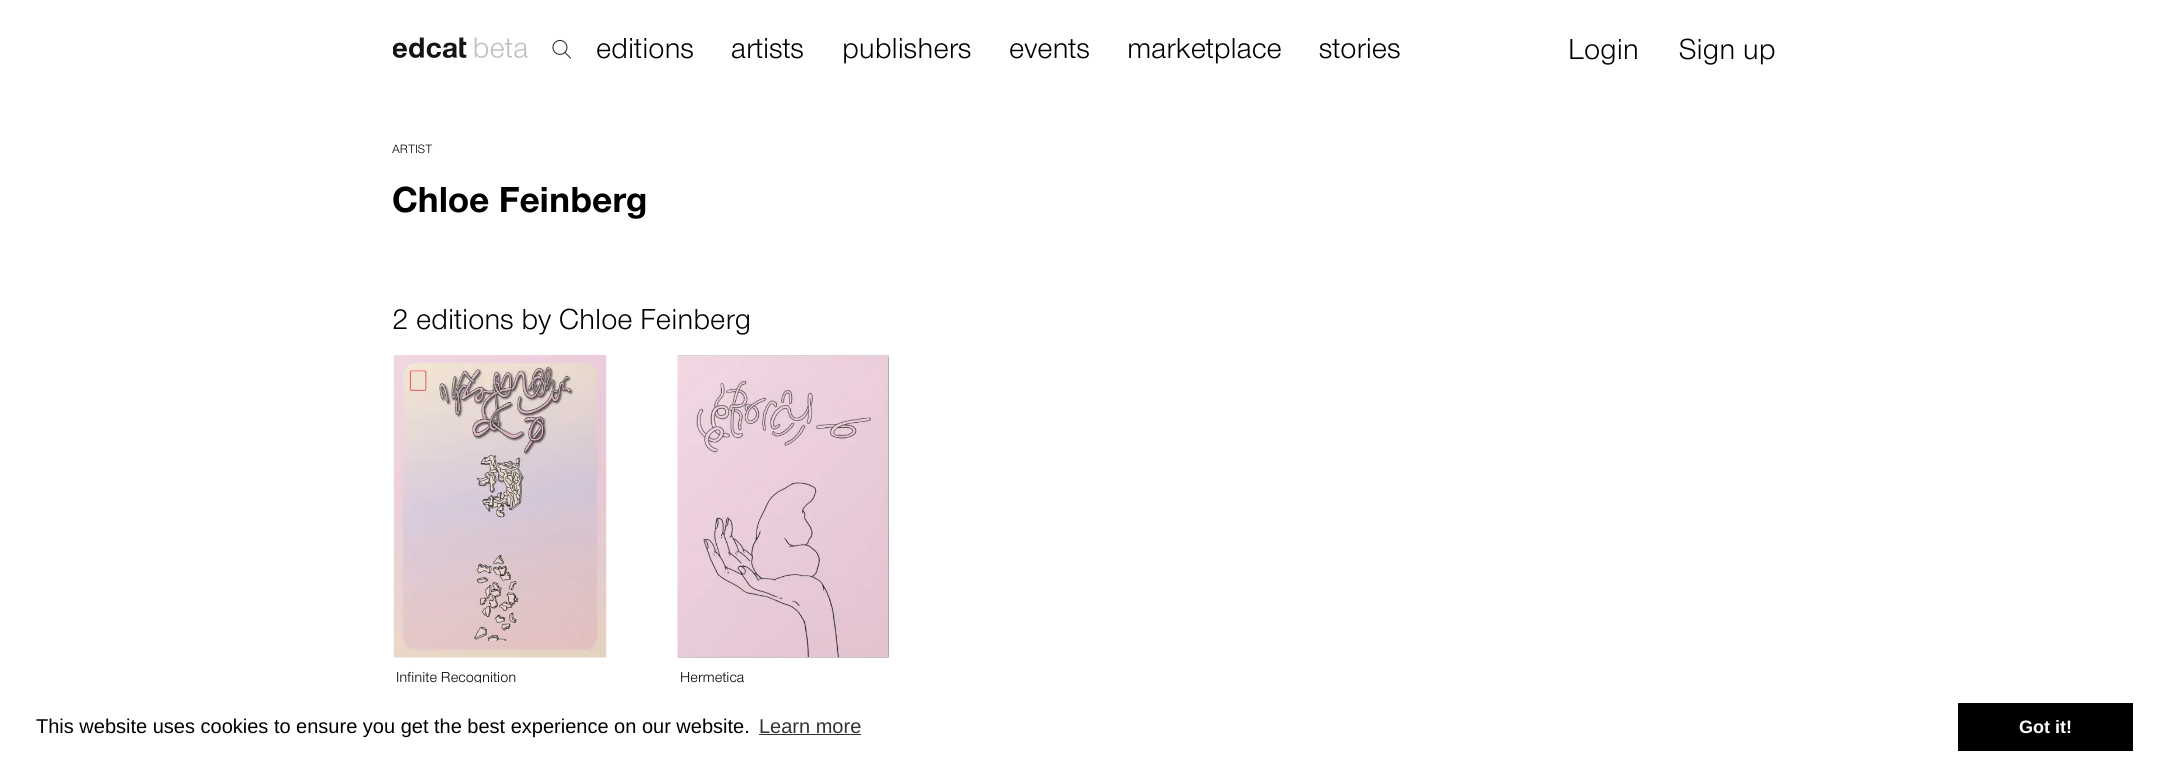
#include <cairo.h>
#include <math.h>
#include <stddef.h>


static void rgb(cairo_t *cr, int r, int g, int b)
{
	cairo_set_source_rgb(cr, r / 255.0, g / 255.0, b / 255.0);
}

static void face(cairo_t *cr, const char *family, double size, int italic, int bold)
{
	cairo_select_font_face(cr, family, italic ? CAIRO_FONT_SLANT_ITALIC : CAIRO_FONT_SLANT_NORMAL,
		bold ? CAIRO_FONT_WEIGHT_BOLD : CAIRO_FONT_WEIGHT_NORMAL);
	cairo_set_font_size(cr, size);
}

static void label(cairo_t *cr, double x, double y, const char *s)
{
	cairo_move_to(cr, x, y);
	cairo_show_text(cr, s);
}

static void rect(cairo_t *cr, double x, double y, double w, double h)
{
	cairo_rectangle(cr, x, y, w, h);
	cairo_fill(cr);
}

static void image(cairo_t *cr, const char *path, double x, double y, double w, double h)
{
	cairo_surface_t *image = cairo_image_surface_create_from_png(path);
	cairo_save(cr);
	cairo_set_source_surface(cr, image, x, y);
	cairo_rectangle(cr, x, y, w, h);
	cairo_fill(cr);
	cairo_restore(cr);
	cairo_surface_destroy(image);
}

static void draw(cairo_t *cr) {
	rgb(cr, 255, 255, 255);
	cairo_paint(cr);
	image(cr, "image0.png", 393, 37, 135, 21);
	image(cr, "image1.png", 552, 39, 19, 20);
	face(cr, "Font", 30, 0, 0);
	rgb(cr, 0, 0, 0);
	label(cr, 596, 58, "editions");
	label(cr, 731, 58, "artists");
	label(cr, 842, 58, "publishers");
	label(cr, 1009, 58, "events");
	label(cr, 1127, 58, "marketplace");
	label(cr, 1319, 58, "stories");
	label(cr, 1568, 59, "Login");
	label(cr, 1679, 59, "Sign up");
	face(cr, "Font", 12.5, 0, 0);
	label(cr, 392, 153, "ARTIST");
	face(cr, "Font", 37.5, 0, 1);
	label(cr, 392, 212, "Chloe Feinberg");
	face(cr, "Font", 30, 0, 0);
	label(cr, 392, 329, "2 editions by Chloe Feinberg");
	image(cr, "image2.png", 393, 355, 214, 303);
	face(cr, "Font", 15, 0, 0);
	label(cr, 396, 682, "Infinite Recognition");
	image(cr, "image3.png", 677, 355, 212, 303);
	label(cr, 680, 682, "Hermetica");
	rgb(cr, 255, 255, 255);
	rect(cr, 474, 683, 7, 2);
	face(cr, "Liberation Sans", 20, 0, 0);
	rgb(cr, 0, 0, 0);
	label(cr, 36, 733, "This website uses cookies to ensure you get the best experience on our website.");
	rgb(cr, 51, 51, 51);
	label(cr, 759, 733, "Learn more");
	rect(cr, 759, 734, 102, 1);
	rgb(cr, 0, 0, 0);
	rect(cr, 1958, 703, 175, 48);
	face(cr, "Liberation Sans", 18, 0, 1);
	rgb(cr, 255, 255, 255);
	label(cr, 2019, 733, "Got it!");
}

int main(void) {
	cairo_surface_t *surface = cairo_image_surface_create(CAIRO_FORMAT_RGB24, 2168, 771);
	cairo_t *cr = cairo_create(surface);
	cairo_font_options_t *options = cairo_font_options_create();
	cairo_font_options_set_hint_metrics(options, CAIRO_HINT_METRICS_OFF);
	cairo_font_options_set_hint_style(options, CAIRO_HINT_STYLE_NONE);
	cairo_set_font_options(cr, options);
	cairo_set_miter_limit(cr, 4);
	draw(cr);
	cairo_surface_write_to_png(surface, "render.png");
	cairo_font_options_destroy(options);
	cairo_destroy(cr);
	cairo_surface_destroy(surface);
	return 0;
}
